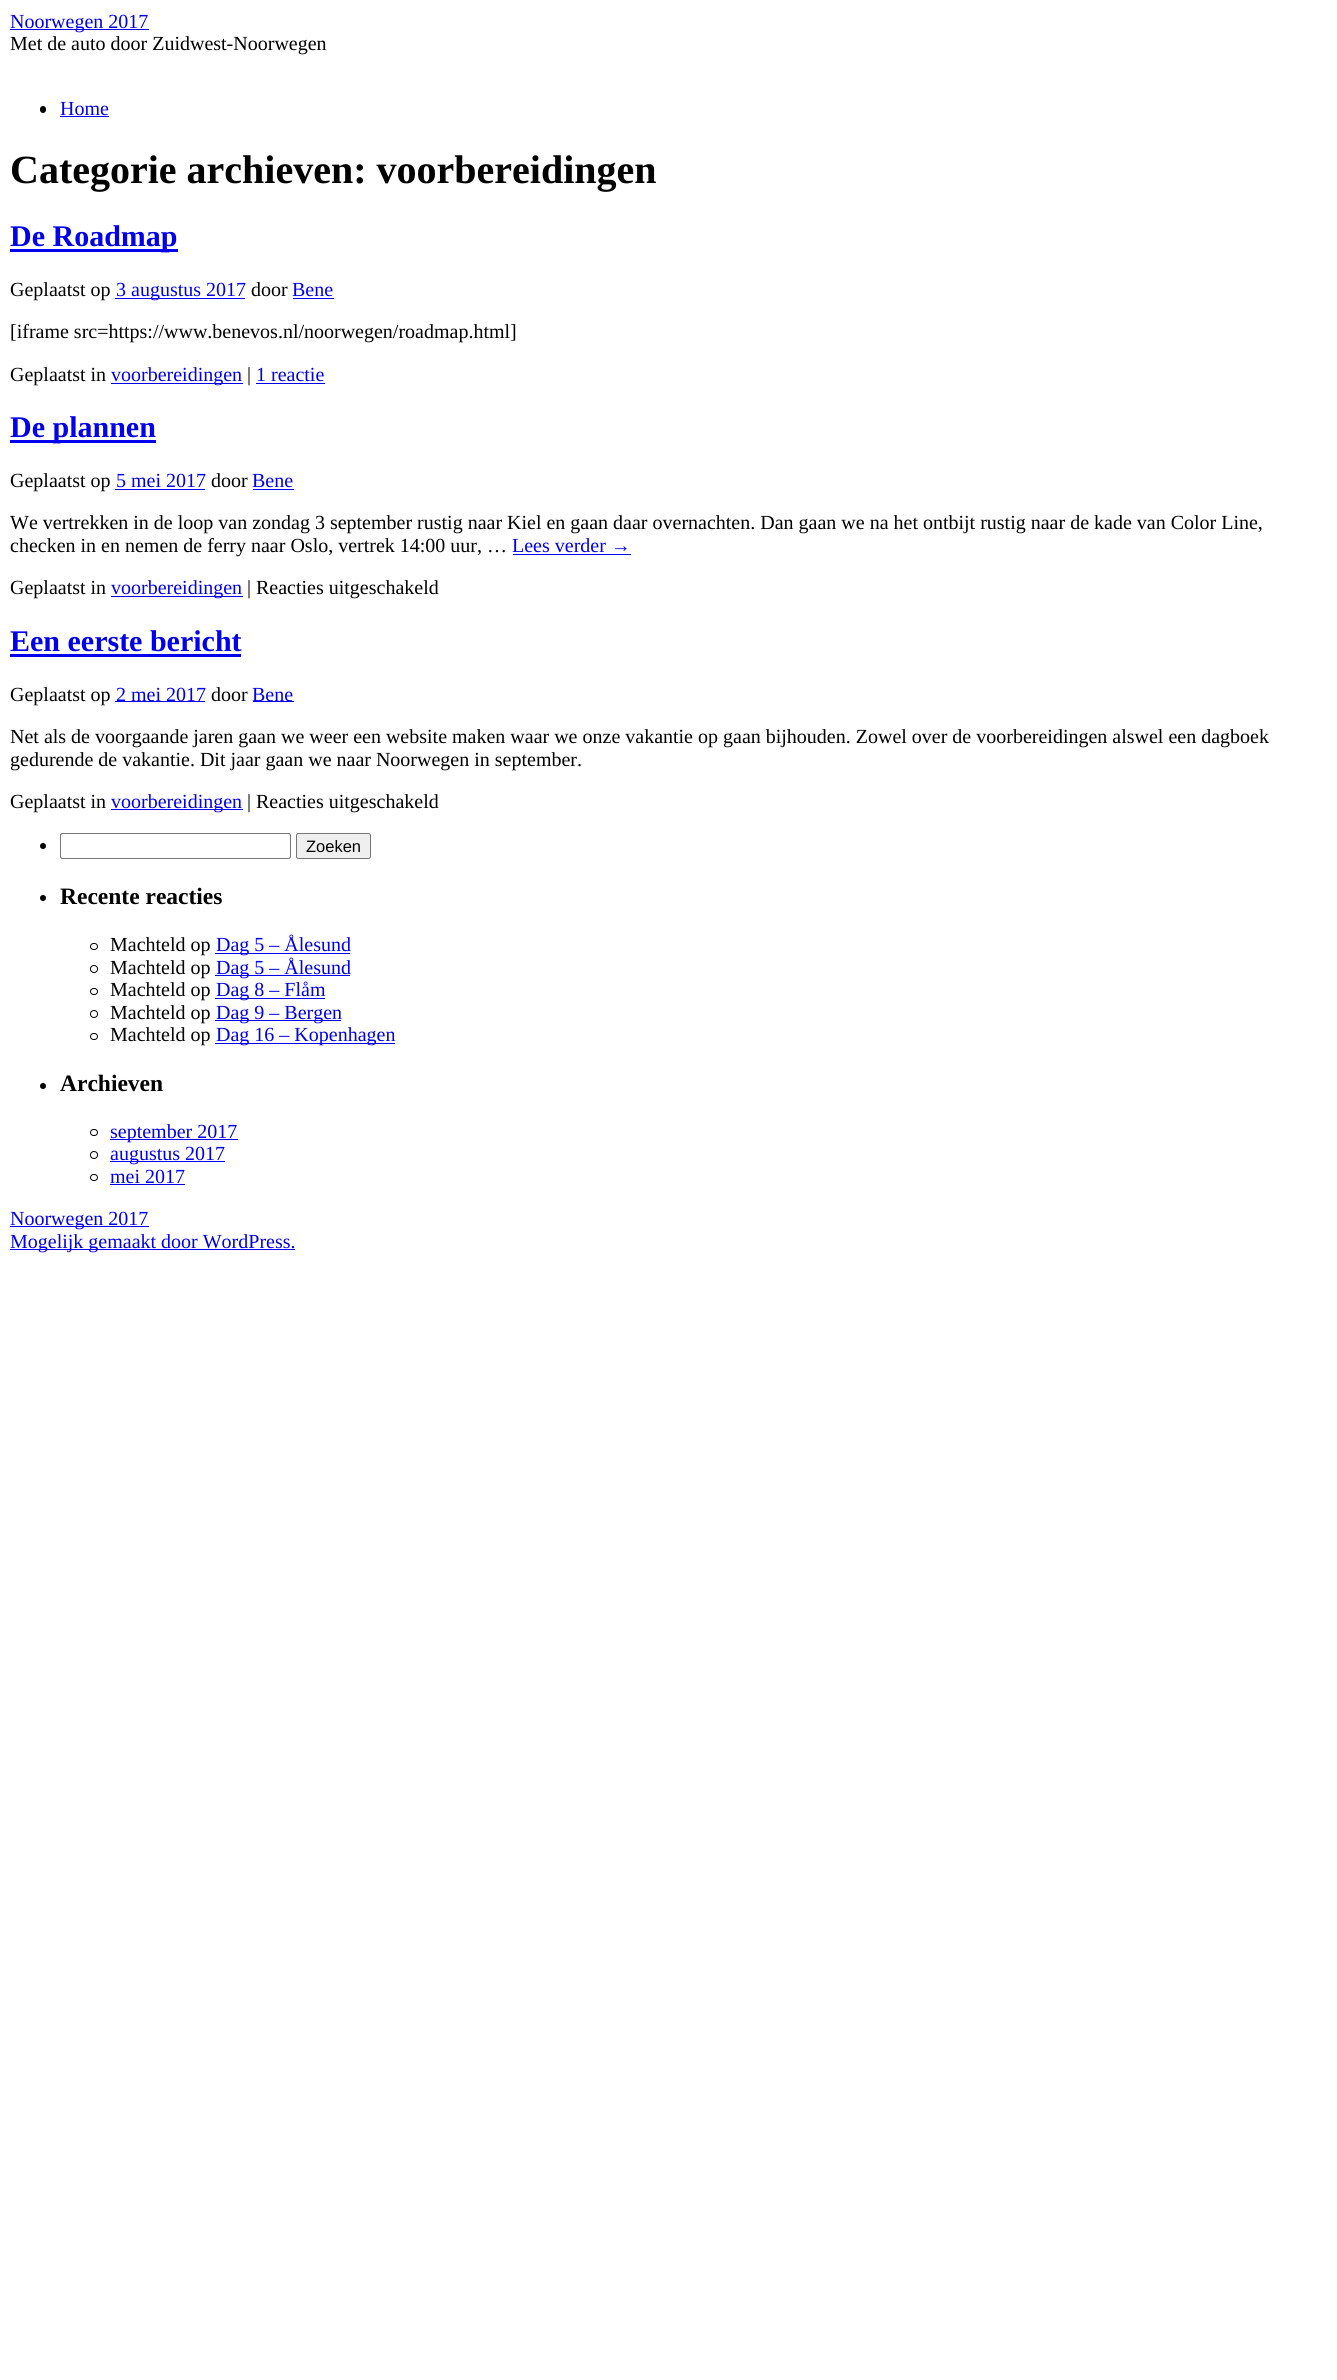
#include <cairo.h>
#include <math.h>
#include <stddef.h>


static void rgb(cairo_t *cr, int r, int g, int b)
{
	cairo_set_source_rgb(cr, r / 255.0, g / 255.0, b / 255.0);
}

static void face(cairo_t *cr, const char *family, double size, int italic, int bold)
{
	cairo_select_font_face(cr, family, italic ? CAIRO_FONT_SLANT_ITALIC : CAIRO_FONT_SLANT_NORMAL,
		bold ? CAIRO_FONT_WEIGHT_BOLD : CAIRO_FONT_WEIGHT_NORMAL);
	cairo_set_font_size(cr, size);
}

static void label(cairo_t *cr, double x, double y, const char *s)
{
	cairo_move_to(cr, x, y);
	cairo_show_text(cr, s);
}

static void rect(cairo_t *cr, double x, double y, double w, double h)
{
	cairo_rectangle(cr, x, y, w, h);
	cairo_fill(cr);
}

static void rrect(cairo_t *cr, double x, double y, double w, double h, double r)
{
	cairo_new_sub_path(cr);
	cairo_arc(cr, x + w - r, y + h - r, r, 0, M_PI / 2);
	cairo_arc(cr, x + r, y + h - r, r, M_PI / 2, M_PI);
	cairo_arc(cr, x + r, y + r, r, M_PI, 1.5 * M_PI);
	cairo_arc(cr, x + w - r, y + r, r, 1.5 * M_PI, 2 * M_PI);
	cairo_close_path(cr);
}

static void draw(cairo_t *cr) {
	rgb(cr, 255, 255, 255);
	cairo_paint(cr);
	rgb(cr, 0, 0, 238);
	rect(cr, 10, 29, 139, 1);
	face(cr, "Liberation Serif", 20, 0, 0);
	label(cr, 10, 28, "Noorwegen 2017");
	rgb(cr, 0, 0, 0);
	label(cr, 10, 50, "Met de auto door Zuidwest-Noorwegen");
	rrect(cr, 40, 106, 6, 7, 3);
	cairo_fill(cr);
	rgb(cr, 0, 0, 238);
	label(cr, 60, 115, "Home");
	rect(cr, 60, 116, 49, 1);
	face(cr, "Liberation Serif", 40, 0, 1);
	rgb(cr, 0, 0, 0);
	label(cr, 10, 183, "Categorie archieven: voorbereidingen");
	rgb(cr, 0, 0, 238);
	rect(cr, 10, 249, 168, 3);
	face(cr, "Liberation Serif", 30, 0, 1);
	label(cr, 10, 246, "De Roadmap");
	face(cr, "Liberation Serif", 20, 0, 0);
	rgb(cr, 0, 0, 0);
	label(cr, 10, 296, "Geplaatst op");
	rgb(cr, 0, 0, 238);
	rect(cr, 115, 298, 130, 1);
	label(cr, 116, 296, "3 augustus 2017");
	rgb(cr, 0, 0, 0);
	label(cr, 251, 296, "door");
	rgb(cr, 0, 0, 238);
	label(cr, 292, 296, "Bene");
	rect(cr, 293, 298, 41, 1);
	rgb(cr, 0, 0, 0);
	label(cr, 10, 338, "[iframe src=https://www.benevos.nl/noorwegen/roadmap.html]");
	label(cr, 10, 381, "Geplaatst in");
	rgb(cr, 0, 0, 238);
	rect(cr, 111, 383, 132, 1);
	label(cr, 111, 381, "voorbereidingen");
	rgb(cr, 0, 0, 0);
	label(cr, 247, 381, "|");
	rgb(cr, 0, 0, 238);
	label(cr, 256, 381, "1 reactie");
	rect(cr, 256, 383, 69, 1);
	rect(cr, 10, 440, 146, 3);
	face(cr, "Liberation Serif", 30, 0, 1);
	label(cr, 10, 437, "De plannen");
	face(cr, "Liberation Serif", 20, 0, 0);
	rgb(cr, 0, 0, 0);
	label(cr, 10, 487, "Geplaatst op");
	rgb(cr, 0, 0, 238);
	label(cr, 116, 487, "5 mei 2017");
	rect(cr, 115, 489, 90, 1);
	rgb(cr, 0, 0, 0);
	label(cr, 211, 487, "door");
	rgb(cr, 0, 0, 238);
	label(cr, 252, 487, "Bene");
	rect(cr, 253, 489, 41, 1);
	rgb(cr, 0, 0, 0);
	label(cr, 10, 529, "We vertrekken in de loop van zondag 3 september rustig naar Kiel en gaan daar overnachten. Dan gaan we na het ontbijt rustig naar de kade van Color Line,");
	label(cr, 10, 552, "checken in en nemen de ferry naar Oslo, vertrek 14:00 uur, …");
	rgb(cr, 0, 0, 238);
	label(cr, 512, 552, "Lees verder →");
	rect(cr, 513, 554, 118, 1);
	rgb(cr, 0, 0, 0);
	label(cr, 10, 594, "Geplaatst in");
	rgb(cr, 0, 0, 238);
	rect(cr, 111, 596, 132, 1);
	label(cr, 111, 594, "voorbereidingen");
	rgb(cr, 0, 0, 0);
	label(cr, 247, 594, "| Reacties uitgeschakeld");
	face(cr, "Liberation Serif", 30, 0, 1);
	rgb(cr, 0, 0, 238);
	label(cr, 10, 651, "Een eerste bericht");
	rect(cr, 10, 654, 231, 3);
	face(cr, "Liberation Serif", 20, 0, 0);
	rgb(cr, 0, 0, 0);
	label(cr, 10, 701, "Geplaatst op");
	rgb(cr, 0, 0, 238);
	rect(cr, 115, 701, 90, 1);
	label(cr, 116, 701, "2 mei 2017");
	rgb(cr, 0, 0, 0);
	label(cr, 211, 701, "door");
	rgb(cr, 0, 0, 238);
	rect(cr, 253, 701, 41, 1);
	label(cr, 252, 701, "Bene");
	rgb(cr, 0, 0, 0);
	label(cr, 10, 743, "Net als de voorgaande jaren gaan we weer een website maken waar we onze vakantie op gaan bijhouden. Zowel over de voorbereidingen alswel een dagboek");
	label(cr, 10, 766, "gedurende de vakantie. Dit jaar gaan we naar Noorwegen in september.");
	label(cr, 10, 808, "Geplaatst in");
	rgb(cr, 0, 0, 238);
	rect(cr, 111, 809, 132, 1);
	label(cr, 111, 808, "voorbereidingen");
	rgb(cr, 0, 0, 0);
	label(cr, 247, 808, "| Reacties uitgeschakeld");
	cairo_new_path(cr);
	cairo_arc(cr, 43, 846, 3, 0, 2 * M_PI);
	cairo_fill(cr);
	rrect(cr, 60.5, 833.5, 230, 25, 2);
	rgb(cr, 118, 118, 118);
	cairo_set_line_width(cr, 1);
	cairo_stroke(cr);
	rgb(cr, 239, 239, 239);
	rrect(cr, 296.5, 833.5, 74, 25, 2);
	cairo_fill_preserve(cr);
	rgb(cr, 118, 118, 118);
	cairo_stroke(cr);
	face(cr, "Liberation Sans", 16.5, 0, 0);
	rgb(cr, 0, 0, 0);
	label(cr, 306, 852, "Zoeken");
	cairo_new_path(cr);
	cairo_arc(cr, 43, 898, 3, 0, 2 * M_PI);
	cairo_fill(cr);
	face(cr, "Liberation Serif", 23.5, 0, 1);
	label(cr, 60, 904, "Recente reacties");
	rrect(cr, 90.5, 943.5, 7, 6, 3);
	cairo_stroke(cr);
	face(cr, "Liberation Serif", 20, 0, 0);
	label(cr, 110, 951, "Machteld op");
	rgb(cr, 0, 0, 238);
	rect(cr, 215, 953, 135, 1);
	label(cr, 216, 951, "Dag 5 – Ålesund");
	cairo_new_path(cr);
	cairo_arc(cr, 94, 969, 3.5, 0, 2 * M_PI);
	rgb(cr, 0, 0, 0);
	cairo_stroke(cr);
	label(cr, 110, 974, "Machteld op");
	rgb(cr, 0, 0, 238);
	rect(cr, 215, 975, 135, 1);
	label(cr, 216, 974, "Dag 5 – Ålesund");
	rrect(cr, 90.5, 988.5, 7, 6, 3);
	rgb(cr, 0, 0, 0);
	cairo_stroke(cr);
	label(cr, 110, 996, "Machteld op");
	rgb(cr, 0, 0, 238);
	rect(cr, 215, 998, 110, 1);
	label(cr, 216, 996, "Dag 8 – Flåm");
	cairo_new_path(cr);
	cairo_arc(cr, 94, 1014, 3.5, 0, 2 * M_PI);
	rgb(cr, 0, 0, 0);
	cairo_stroke(cr);
	label(cr, 110, 1019, "Machteld op");
	rgb(cr, 0, 0, 238);
	rect(cr, 215, 1020, 126, 1);
	label(cr, 216, 1019, "Dag 9 – Bergen");
	rrect(cr, 90.5, 1033.5, 7, 6, 3);
	rgb(cr, 0, 0, 0);
	cairo_stroke(cr);
	label(cr, 110, 1041, "Machteld op");
	rgb(cr, 0, 0, 238);
	rect(cr, 215, 1043, 180, 1);
	label(cr, 216, 1041, "Dag 16 – Kopenhagen");
	rgb(cr, 0, 0, 0);
	cairo_new_path(cr);
	cairo_arc(cr, 43, 1086, 3, 0, 2 * M_PI);
	cairo_fill(cr);
	face(cr, "Liberation Serif", 23.5, 0, 1);
	label(cr, 60, 1091, "Archieven");
	rrect(cr, 90.5, 1129.5, 7, 6, 3);
	cairo_stroke(cr);
	rgb(cr, 0, 0, 238);
	rect(cr, 110, 1139, 128, 1);
	face(cr, "Liberation Serif", 20, 0, 0);
	label(cr, 110, 1138, "september 2017");
	cairo_new_path(cr);
	cairo_arc(cr, 94, 1155, 3.5, 0, 2 * M_PI);
	rgb(cr, 0, 0, 0);
	cairo_stroke(cr);
	rgb(cr, 0, 0, 238);
	rect(cr, 110, 1161, 115, 1);
	label(cr, 110, 1160, "augustus 2017");
	rrect(cr, 90.5, 1174.5, 7, 6, 3);
	rgb(cr, 0, 0, 0);
	cairo_stroke(cr);
	rgb(cr, 0, 0, 238);
	label(cr, 110, 1183, "mei 2017");
	rect(cr, 110, 1184, 75, 1);
	rect(cr, 10, 1226, 139, 1);
	label(cr, 10, 1225, "Noorwegen 2017");
	rect(cr, 10, 1249, 285, 1);
	label(cr, 10, 1248, "Mogelijk gemaakt door WordPress.");
}

int main(void) {
	cairo_surface_t *surface = cairo_image_surface_create(CAIRO_FORMAT_RGB24, 1337, 2380);
	cairo_t *cr = cairo_create(surface);
	cairo_font_options_t *options = cairo_font_options_create();
	cairo_font_options_set_hint_metrics(options, CAIRO_HINT_METRICS_OFF);
	cairo_font_options_set_hint_style(options, CAIRO_HINT_STYLE_NONE);
	cairo_set_font_options(cr, options);
	cairo_set_miter_limit(cr, 4);
	draw(cr);
	cairo_surface_write_to_png(surface, "render.png");
	cairo_font_options_destroy(options);
	cairo_destroy(cr);
	cairo_surface_destroy(surface);
	return 0;
}
